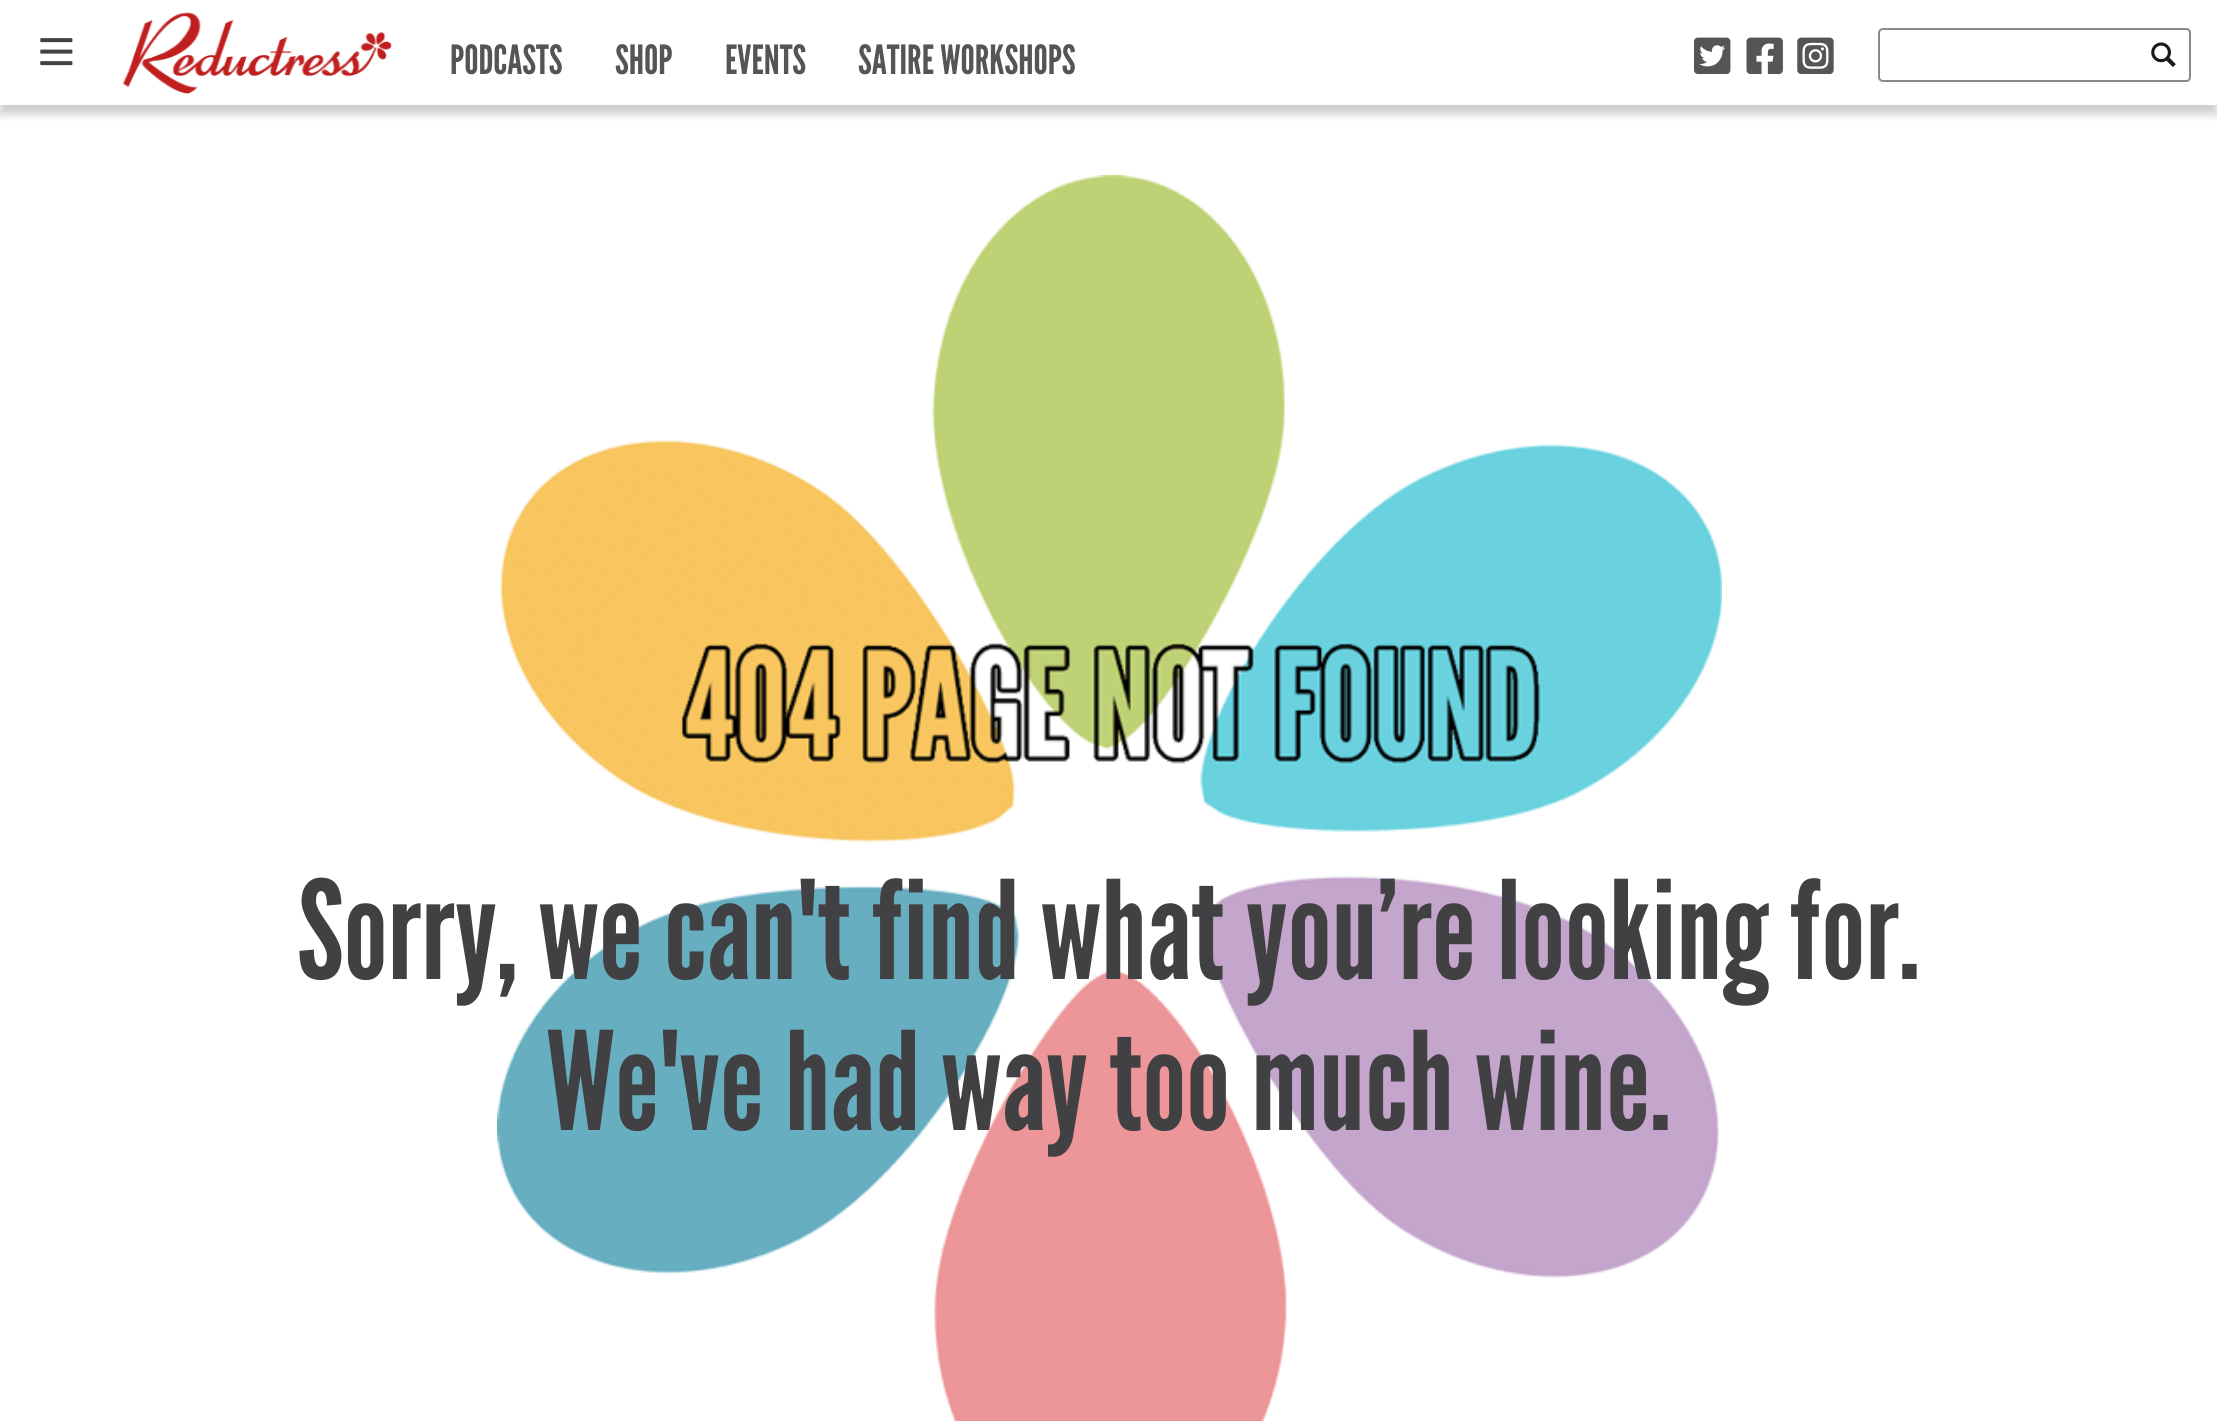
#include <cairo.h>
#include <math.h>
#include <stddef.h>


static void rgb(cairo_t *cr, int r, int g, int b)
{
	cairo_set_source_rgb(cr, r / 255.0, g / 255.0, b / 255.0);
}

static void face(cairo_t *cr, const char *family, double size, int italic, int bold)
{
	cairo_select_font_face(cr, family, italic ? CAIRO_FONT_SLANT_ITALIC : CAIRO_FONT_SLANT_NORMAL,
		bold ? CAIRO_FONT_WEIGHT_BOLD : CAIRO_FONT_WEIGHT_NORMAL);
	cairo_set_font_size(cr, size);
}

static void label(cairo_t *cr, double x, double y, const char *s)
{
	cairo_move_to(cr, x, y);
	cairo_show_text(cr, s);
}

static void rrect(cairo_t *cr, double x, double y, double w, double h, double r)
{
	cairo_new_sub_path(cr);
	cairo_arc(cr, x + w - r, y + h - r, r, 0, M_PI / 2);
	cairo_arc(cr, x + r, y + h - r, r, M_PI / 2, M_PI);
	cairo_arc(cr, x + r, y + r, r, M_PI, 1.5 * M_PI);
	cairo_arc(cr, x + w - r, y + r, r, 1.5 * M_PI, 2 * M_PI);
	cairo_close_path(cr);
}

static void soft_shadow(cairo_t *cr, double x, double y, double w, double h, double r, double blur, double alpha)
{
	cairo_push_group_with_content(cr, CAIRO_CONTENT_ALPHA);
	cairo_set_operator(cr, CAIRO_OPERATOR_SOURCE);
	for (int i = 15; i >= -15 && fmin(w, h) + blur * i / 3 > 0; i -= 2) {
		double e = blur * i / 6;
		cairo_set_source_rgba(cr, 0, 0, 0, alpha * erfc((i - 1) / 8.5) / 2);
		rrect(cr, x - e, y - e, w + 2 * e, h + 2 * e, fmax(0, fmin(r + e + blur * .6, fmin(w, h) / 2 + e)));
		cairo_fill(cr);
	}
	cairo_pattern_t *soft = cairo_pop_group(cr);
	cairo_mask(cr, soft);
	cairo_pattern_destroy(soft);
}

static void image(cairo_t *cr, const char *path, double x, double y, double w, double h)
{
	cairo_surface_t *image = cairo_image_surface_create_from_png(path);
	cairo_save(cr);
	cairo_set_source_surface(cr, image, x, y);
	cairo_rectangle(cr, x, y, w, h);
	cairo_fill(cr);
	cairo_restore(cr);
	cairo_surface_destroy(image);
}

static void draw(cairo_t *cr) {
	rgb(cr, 255, 255, 255);
	cairo_paint(cr);
	cairo_save(cr);
	cairo_rectangle(cr, 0, 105, 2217, 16);
	cairo_clip(cr);
	rgb(cr, 50, 50, 50);
	soft_shadow(cr, 0, 9, 2217, 105, 0, 5, 0.26);
	cairo_restore(cr);
	image(cr, "image0.png", 40, 38, 33, 28);
	image(cr, "image1.png", 122, 12, 270, 82);
	face(cr, "League Gothic", 40.25, 0, 0);
	rgb(cr, 85, 85, 85);
	label(cr, 450, 74, "PODCASTS");
	label(cr, 615, 74, "SHOP");
	label(cr, 725, 74, "EVENTS");
	label(cr, 858, 74, "SATIRE WORKSHOPS");
	image(cr, "image2.png", 1694, 37, 37, 37);
	image(cr, "image3.png", 1746, 37, 37, 37);
	image(cr, "image4.png", 1797, 37, 37, 37);
	rrect(cr, 1879, 29, 311, 52, 4);
	rgb(cr, 138, 138, 138);
	cairo_stroke(cr);
	rgb(cr, 255, 255, 255);
	cairo_new_path(cr);
	cairo_move_to(cr, 2142, 28);
	cairo_line_to(cr, 2186, 28);
	cairo_curve_to(cr, 2189, 28, 2191, 30, 2191, 33);
	cairo_line_to(cr, 2191, 77);
	cairo_curve_to(cr, 2191, 80, 2189, 82, 2186, 82);
	cairo_line_to(cr, 2142, 82);
	cairo_close_path(cr);
	cairo_fill(cr);
	rgb(cr, 138, 138, 138);
	cairo_set_fill_rule(cr, CAIRO_FILL_RULE_EVEN_ODD);
	cairo_new_path(cr);
	cairo_move_to(cr, 2142, 28);
	cairo_line_to(cr, 2186, 28);
	cairo_curve_to(cr, 2189, 28, 2191, 30, 2191, 33);
	cairo_line_to(cr, 2191, 77);
	cairo_curve_to(cr, 2191, 80, 2189, 82, 2186, 82);
	cairo_line_to(cr, 2142, 82);
	cairo_close_path(cr);
	cairo_move_to(cr, 2142, 30);
	cairo_line_to(cr, 2186, 30);
	cairo_curve_to(cr, 2188, 30, 2189, 31, 2189, 33);
	cairo_line_to(cr, 2189, 77);
	cairo_curve_to(cr, 2189, 79, 2188, 80, 2186, 80);
	cairo_line_to(cr, 2142, 80);
	cairo_close_path(cr);
	cairo_fill(cr);
	image(cr, "image5.png", 2151, 42, 25, 25);
	image(cr, "image6.png", 497, 175, 1225, 1246);
	face(cr, "League Gothic", 136.5, 0, 0);
	rgb(cr, 65, 64, 66);
	label(cr, 297, 979, "Sorry, we can't find what you’re looking for.");
	label(cr, 546, 1130, "We've had way too much wine.");
}

int main(void) {
	cairo_surface_t *surface = cairo_image_surface_create(CAIRO_FORMAT_RGB24, 2217, 1421);
	cairo_t *cr = cairo_create(surface);
	cairo_font_options_t *options = cairo_font_options_create();
	cairo_font_options_set_hint_metrics(options, CAIRO_HINT_METRICS_OFF);
	cairo_font_options_set_hint_style(options, CAIRO_HINT_STYLE_NONE);
	cairo_set_font_options(cr, options);
	cairo_set_miter_limit(cr, 4);
	draw(cr);
	cairo_surface_write_to_png(surface, "render.png");
	cairo_font_options_destroy(options);
	cairo_destroy(cr);
	cairo_surface_destroy(surface);
	return 0;
}
